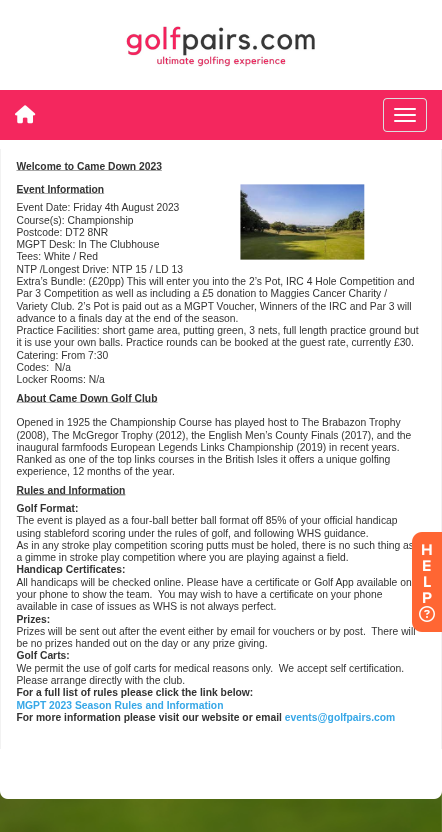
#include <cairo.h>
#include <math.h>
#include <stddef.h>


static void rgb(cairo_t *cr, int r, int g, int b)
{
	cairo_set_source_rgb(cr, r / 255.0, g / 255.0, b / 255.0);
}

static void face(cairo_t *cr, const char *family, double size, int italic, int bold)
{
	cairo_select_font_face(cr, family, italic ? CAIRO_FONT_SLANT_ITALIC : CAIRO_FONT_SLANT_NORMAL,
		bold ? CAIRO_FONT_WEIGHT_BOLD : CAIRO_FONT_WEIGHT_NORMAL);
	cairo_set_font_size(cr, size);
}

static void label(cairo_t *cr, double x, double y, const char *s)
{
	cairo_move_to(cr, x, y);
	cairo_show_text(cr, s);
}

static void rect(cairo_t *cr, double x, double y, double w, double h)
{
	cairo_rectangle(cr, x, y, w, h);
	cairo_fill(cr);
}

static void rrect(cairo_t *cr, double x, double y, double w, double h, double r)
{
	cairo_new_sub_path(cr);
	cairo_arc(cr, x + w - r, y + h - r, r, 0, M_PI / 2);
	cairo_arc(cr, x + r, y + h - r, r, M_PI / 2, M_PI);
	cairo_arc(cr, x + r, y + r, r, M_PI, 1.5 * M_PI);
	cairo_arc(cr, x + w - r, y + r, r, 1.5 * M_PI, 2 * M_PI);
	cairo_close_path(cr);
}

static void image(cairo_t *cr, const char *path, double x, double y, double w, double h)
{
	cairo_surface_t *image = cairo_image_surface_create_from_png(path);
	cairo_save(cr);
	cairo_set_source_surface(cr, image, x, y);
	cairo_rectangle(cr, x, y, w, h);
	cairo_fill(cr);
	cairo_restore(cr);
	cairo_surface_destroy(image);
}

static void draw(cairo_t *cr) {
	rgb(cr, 255, 255, 255);
	cairo_paint(cr);
	image(cr, "image0.png", 0, 791, 442, 41);
	rgb(cr, 255, 255, 255);
	cairo_new_path(cr);
	cairo_move_to(cr, 0, 0);
	cairo_line_to(cr, 442, 0);
	cairo_line_to(cr, 442, 791);
	cairo_curve_to(cr, 442, 795.5, 438.5, 799, 434, 799);
	cairo_line_to(cr, 8, 799);
	cairo_curve_to(cr, 3.5, 799, 0, 795.5, 0, 791);
	cairo_close_path(cr);
	cairo_fill(cr);
	image(cr, "image1.png", 126, 26, 189, 41);
	rgb(cr, 244, 39, 94);
	rect(cr, 0, 90, 442, 50);
	image(cr, "image2.png", 15, 105, 21, 19);
	rrect(cr, 383.5, 98.5, 43, 33, 3.5);
	rgb(cr, 221, 221, 221);
	cairo_set_line_width(cr, 1);
	cairo_stroke(cr);
	rgb(cr, 254, 254, 254);
	rrect(cr, 394, 108, 22, 2, 1);
	cairo_fill(cr);
	rrect(cr, 394, 114, 22, 2, 1);
	cairo_fill(cr);
	rrect(cr, 394, 120, 22, 2, 1);
	cairo_fill(cr);
	rgb(cr, 242, 242, 242);
	rect(cr, 441, 149, 1, 600);
	rect(cr, 0, 149, 1, 600);
	image(cr, "image3.png", 16, 162, 403, 561);
	rgb(cr, 255, 102, 51);
	cairo_new_path(cr);
	cairo_move_to(cr, 422, 532);
	cairo_line_to(cr, 442, 532);
	cairo_line_to(cr, 442, 632);
	cairo_line_to(cr, 422, 632);
	cairo_curve_to(cr, 416.5, 632, 412, 627.5, 412, 622);
	cairo_line_to(cr, 412, 542);
	cairo_curve_to(cr, 412, 536.5, 416.5, 532, 422, 532);
	cairo_close_path(cr);
	cairo_fill(cr);
	face(cr, "Proxima Nova", 16, 0, 1);
	rgb(cr, 254, 254, 254);
	label(cr, 421, 555, "H");
	label(cr, 422, 571, "E");
	label(cr, 423, 587, "L");
	label(cr, 422, 603, "P");
	image(cr, "image4.png", 419, 606, 16, 16);
}

int main(void) {
	cairo_surface_t *surface = cairo_image_surface_create(CAIRO_FORMAT_RGB24, 442, 832);
	cairo_t *cr = cairo_create(surface);
	cairo_font_options_t *options = cairo_font_options_create();
	cairo_font_options_set_hint_metrics(options, CAIRO_HINT_METRICS_OFF);
	cairo_font_options_set_hint_style(options, CAIRO_HINT_STYLE_NONE);
	cairo_set_font_options(cr, options);
	cairo_set_miter_limit(cr, 4);
	draw(cr);
	cairo_surface_write_to_png(surface, "render.png");
	cairo_font_options_destroy(options);
	cairo_destroy(cr);
	cairo_surface_destroy(surface);
	return 0;
}
